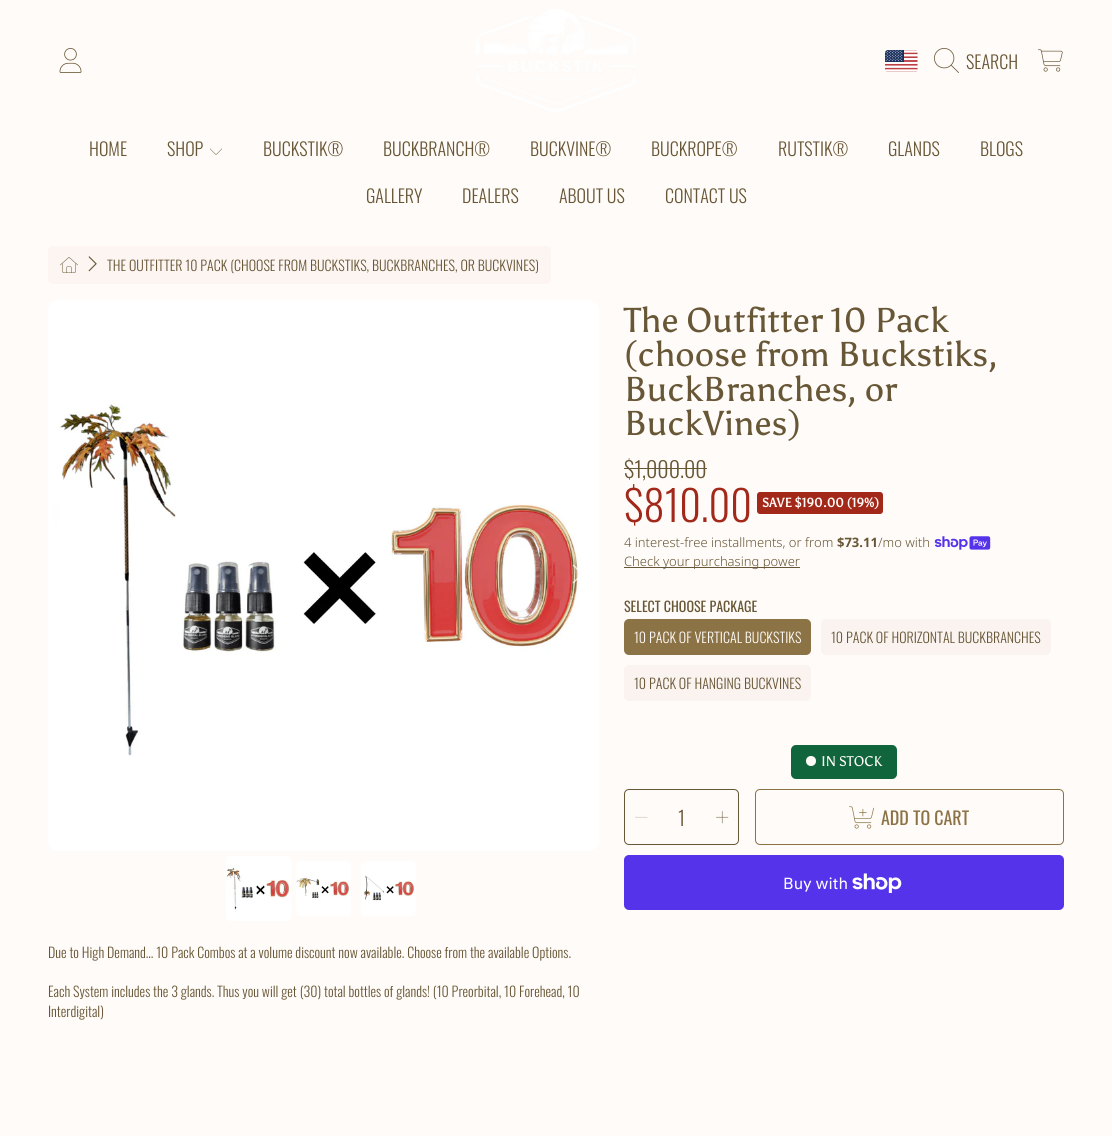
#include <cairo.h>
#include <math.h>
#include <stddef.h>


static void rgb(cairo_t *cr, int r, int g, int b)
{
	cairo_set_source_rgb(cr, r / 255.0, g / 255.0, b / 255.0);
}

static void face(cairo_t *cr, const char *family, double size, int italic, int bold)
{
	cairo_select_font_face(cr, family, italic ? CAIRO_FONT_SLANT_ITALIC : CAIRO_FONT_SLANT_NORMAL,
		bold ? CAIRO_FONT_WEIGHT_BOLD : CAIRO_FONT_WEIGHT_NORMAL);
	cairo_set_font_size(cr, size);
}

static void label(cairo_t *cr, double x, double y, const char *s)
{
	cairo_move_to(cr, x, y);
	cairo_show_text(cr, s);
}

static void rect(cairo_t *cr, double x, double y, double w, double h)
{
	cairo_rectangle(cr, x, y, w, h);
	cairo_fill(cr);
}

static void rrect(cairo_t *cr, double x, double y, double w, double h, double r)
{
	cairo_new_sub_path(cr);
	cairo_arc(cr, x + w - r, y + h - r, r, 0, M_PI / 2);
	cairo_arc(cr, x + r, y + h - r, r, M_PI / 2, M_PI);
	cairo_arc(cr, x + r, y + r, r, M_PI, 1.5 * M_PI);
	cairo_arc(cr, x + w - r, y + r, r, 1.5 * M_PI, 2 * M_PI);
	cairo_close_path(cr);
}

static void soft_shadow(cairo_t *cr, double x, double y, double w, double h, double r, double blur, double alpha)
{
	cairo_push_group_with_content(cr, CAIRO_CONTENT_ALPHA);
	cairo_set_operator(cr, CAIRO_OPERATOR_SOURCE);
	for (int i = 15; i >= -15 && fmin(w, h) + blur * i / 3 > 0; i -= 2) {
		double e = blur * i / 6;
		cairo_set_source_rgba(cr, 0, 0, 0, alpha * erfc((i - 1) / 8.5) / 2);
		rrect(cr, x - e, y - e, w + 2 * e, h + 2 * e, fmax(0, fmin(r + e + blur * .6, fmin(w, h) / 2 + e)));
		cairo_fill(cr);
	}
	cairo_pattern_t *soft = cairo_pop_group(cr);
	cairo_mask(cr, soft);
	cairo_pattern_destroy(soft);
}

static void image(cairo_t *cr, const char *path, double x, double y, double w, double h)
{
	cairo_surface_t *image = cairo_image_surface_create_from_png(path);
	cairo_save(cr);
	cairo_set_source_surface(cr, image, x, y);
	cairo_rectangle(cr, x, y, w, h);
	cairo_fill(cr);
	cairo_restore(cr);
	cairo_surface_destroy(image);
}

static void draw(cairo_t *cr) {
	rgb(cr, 255, 251, 248);
	cairo_paint(cr);
	image(cr, "image0.png", 59, 48, 23, 25);
	image(cr, "image1.png", 476, 9, 160, 103);
	image(cr, "image2.png", 885, 50, 33, 22);
	image(cr, "image3.png", 934, 48, 25, 25);
	face(cr, "Oswald Light", 18, 0, 0);
	rgb(cr, 104, 87, 54);
	label(cr, 966, 69, "SEARCH");
	image(cr, "image4.png", 1038, 49, 25, 23);
	label(cr, 89, 156, "HOME");
	label(cr, 167, 156, "SHOP");
	image(cr, "image5.png", 210, 148, 12, 7);
	label(cr, 263, 156, "BUCKSTIK®");
	label(cr, 383, 156, "BUCKBRANCH®");
	label(cr, 530, 156, "BUCKVINE®");
	label(cr, 651, 156, "BUCKROPE®");
	label(cr, 778, 156, "RUTSTIK®");
	label(cr, 888, 156, "GLANDS");
	label(cr, 980, 156, "BLOGS");
	label(cr, 366, 203, "GALLERY");
	label(cr, 462, 203, "DEALERS");
	label(cr, 559, 203, "ABOUT US");
	label(cr, 665, 203, "CONTACT US");
	rgb(cr, 252, 245, 242);
	rrect(cr, 48, 246, 503, 38, 5);
	cairo_fill(cr);
	image(cr, "image6.png", 60, 257, 18, 16);
	image(cr, "image7.png", 88, 256, 9, 16);
	face(cr, "Oswald Light", 14, 0, 0);
	rgb(cr, 104, 87, 54);
	label(cr, 107, 271, "THE OUTFITTER 10 PACK (CHOOSE FROM BUCKSTIKS, BUCKBRANCHES, OR BUCKVINES)");
	image(cr, "image8.png", 48, 300, 551, 551);
	image(cr, "image9.png", 572, 564, 6, 20);
	cairo_save(cr);
	cairo_rectangle(cr, 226, 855, 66, 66);
	cairo_clip(cr);
	cairo_set_fill_rule(cr, CAIRO_FILL_RULE_EVEN_ODD);
	cairo_new_path(cr);
	cairo_move_to(cr, 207, 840);
	cairo_line_to(cr, 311, 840);
	cairo_line_to(cr, 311, 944);
	cairo_line_to(cr, 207, 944);
	cairo_close_path(cr);
	cairo_move_to(cr, 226, 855);
	cairo_line_to(cr, 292, 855);
	cairo_line_to(cr, 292, 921);
	cairo_line_to(cr, 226, 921);
	cairo_close_path(cr);
	cairo_clip(cr);
	rgb(cr, 0, 0, 0);
	soft_shadow(cr, 226, 859, 66, 66, 0, 6, 0.5);
	cairo_restore(cr);
	image(cr, "image10.png", 226, 856, 66, 65);
	image(cr, "image11.png", 296, 861, 55, 55);
	image(cr, "image12.png", 361, 861, 55, 55);
	face(cr, "Asul", 34.5, 0, 0);
	label(cr, 624, 332, "The Outfitter 10 Pack");
	label(cr, 624, 366, "(choose from Buckstiks,");
	label(cr, 624, 401, "BuckBranches, or");
	label(cr, 624, 435, "BuckVines)");
	face(cr, "Oswald Light", 22, 0, 0);
	label(cr, 624, 478, "$1,000.00");
	rect(cr, 624, 468, 83, 1);
	face(cr, "Oswald Light", 42, 0, 0);
	rgb(cr, 162, 40, 26);
	label(cr, 624, 522, "$810.00");
	rrect(cr, 757, 492, 126, 22, 3);
	cairo_fill(cr);
	face(cr, "Asul", 12.75, 0, 1);
	rgb(cr, 255, 251, 248);
	label(cr, 762, 507, "SAVE $190.00 (19%)");
	face(cr, "Noto Sans Light", 13, 0, 0);
	rgb(cr, 104, 87, 54);
	label(cr, 624, 547, "4 interest-free installments, or from");
	face(cr, "Noto Sans", 13, 0, 1);
	label(cr, 837, 547, "$73.11");
	face(cr, "Noto Sans Light", 13, 0, 0);
	label(cr, 878, 547, "/mo with");
	image(cr, "image13.png", 934, 536, 57, 14);
	rect(cr, 624, 567, 176, 1);
	label(cr, 624, 566, "Check your purchasing power");
	face(cr, "Oswald", 14, 0, 0);
	label(cr, 624, 612, "SELECT CHOOSE PACKAGE");
	rgb(cr, 139, 115, 70);
	rrect(cr, 624, 619, 187, 36, 5);
	cairo_fill(cr);
	face(cr, "Oswald Light", 14, 0, 0);
	rgb(cr, 255, 251, 248);
	label(cr, 634, 643, "10 PACK OF VERTICAL BUCKSTIKS");
	rgb(cr, 250, 243, 240);
	rrect(cr, 821, 619, 230, 36, 5);
	cairo_fill(cr);
	rgb(cr, 104, 87, 54);
	label(cr, 831, 643, "10 PACK OF HORIZONTAL BUCKBRANCHES");
	rgb(cr, 250, 243, 240);
	rrect(cr, 624, 665, 187, 36, 5);
	cairo_fill(cr);
	rgb(cr, 104, 87, 54);
	label(cr, 634, 689, "10 PACK OF HANGING BUCKVINES");
	rgb(cr, 16, 101, 60);
	rrect(cr, 791, 745, 106, 34, 5);
	cairo_fill(cr);
	rgb(cr, 255, 251, 248);
	cairo_arc(cr, 811, 761, 5, 0, 2 * M_PI);
	cairo_fill(cr);
	face(cr, "Asul", 14, 0, 0);
	label(cr, 821, 766, "IN STOCK");
	rrect(cr, 624.5, 789.5, 114, 55, 4.5);
	rgb(cr, 104, 87, 54);
	cairo_set_line_width(cr, 1);
	cairo_stroke(cr);
	image(cr, "image14.png", 635, 816, 13, 2);
	face(cr, "Oswald Light", 20, 0, 0);
	label(cr, 678, 826, "1");
	image(cr, "image15.png", 716, 811, 13, 13);
	rrect(cr, 755.5, 789.5, 308, 55, 4.5);
	rgb(cr, 139, 115, 70);
	cairo_stroke(cr);
	image(cr, "image16.png", 849, 806, 25, 23);
	face(cr, "Oswald", 18, 0, 0);
	label(cr, 881, 825, "ADD TO CART");
	rgb(cr, 84, 51, 235);
	rrect(cr, 624, 855, 440, 55, 5);
	cairo_fill(cr);
	face(cr, "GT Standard", 16, 0, 0);
	rgb(cr, 255, 255, 255);
	label(cr, 783, 889, "Buy with");
	image(cr, "image17.png", 852, 873, 50, 20);
	face(cr, "Oswald Light", 14, 0, 0);
	rgb(cr, 104, 87, 54);
	label(cr, 48, 958, "Due to High Demand... 10 Pack Combos at a volume discount now available. Choose from the available Options.");
	label(cr, 48, 997, "Each System includes the 3 glands. Thus you will get (30) total bottles of glands! (10 Preorbital, 10 Forehead, 10");
	label(cr, 48, 1017, "Interdigital)");
}

int main(void) {
	cairo_surface_t *surface = cairo_image_surface_create(CAIRO_FORMAT_RGB24, 1112, 1136);
	cairo_t *cr = cairo_create(surface);
	cairo_font_options_t *options = cairo_font_options_create();
	cairo_font_options_set_hint_metrics(options, CAIRO_HINT_METRICS_OFF);
	cairo_font_options_set_hint_style(options, CAIRO_HINT_STYLE_NONE);
	cairo_set_font_options(cr, options);
	cairo_set_miter_limit(cr, 4);
	draw(cr);
	cairo_surface_write_to_png(surface, "render.png");
	cairo_font_options_destroy(options);
	cairo_destroy(cr);
	cairo_surface_destroy(surface);
	return 0;
}
